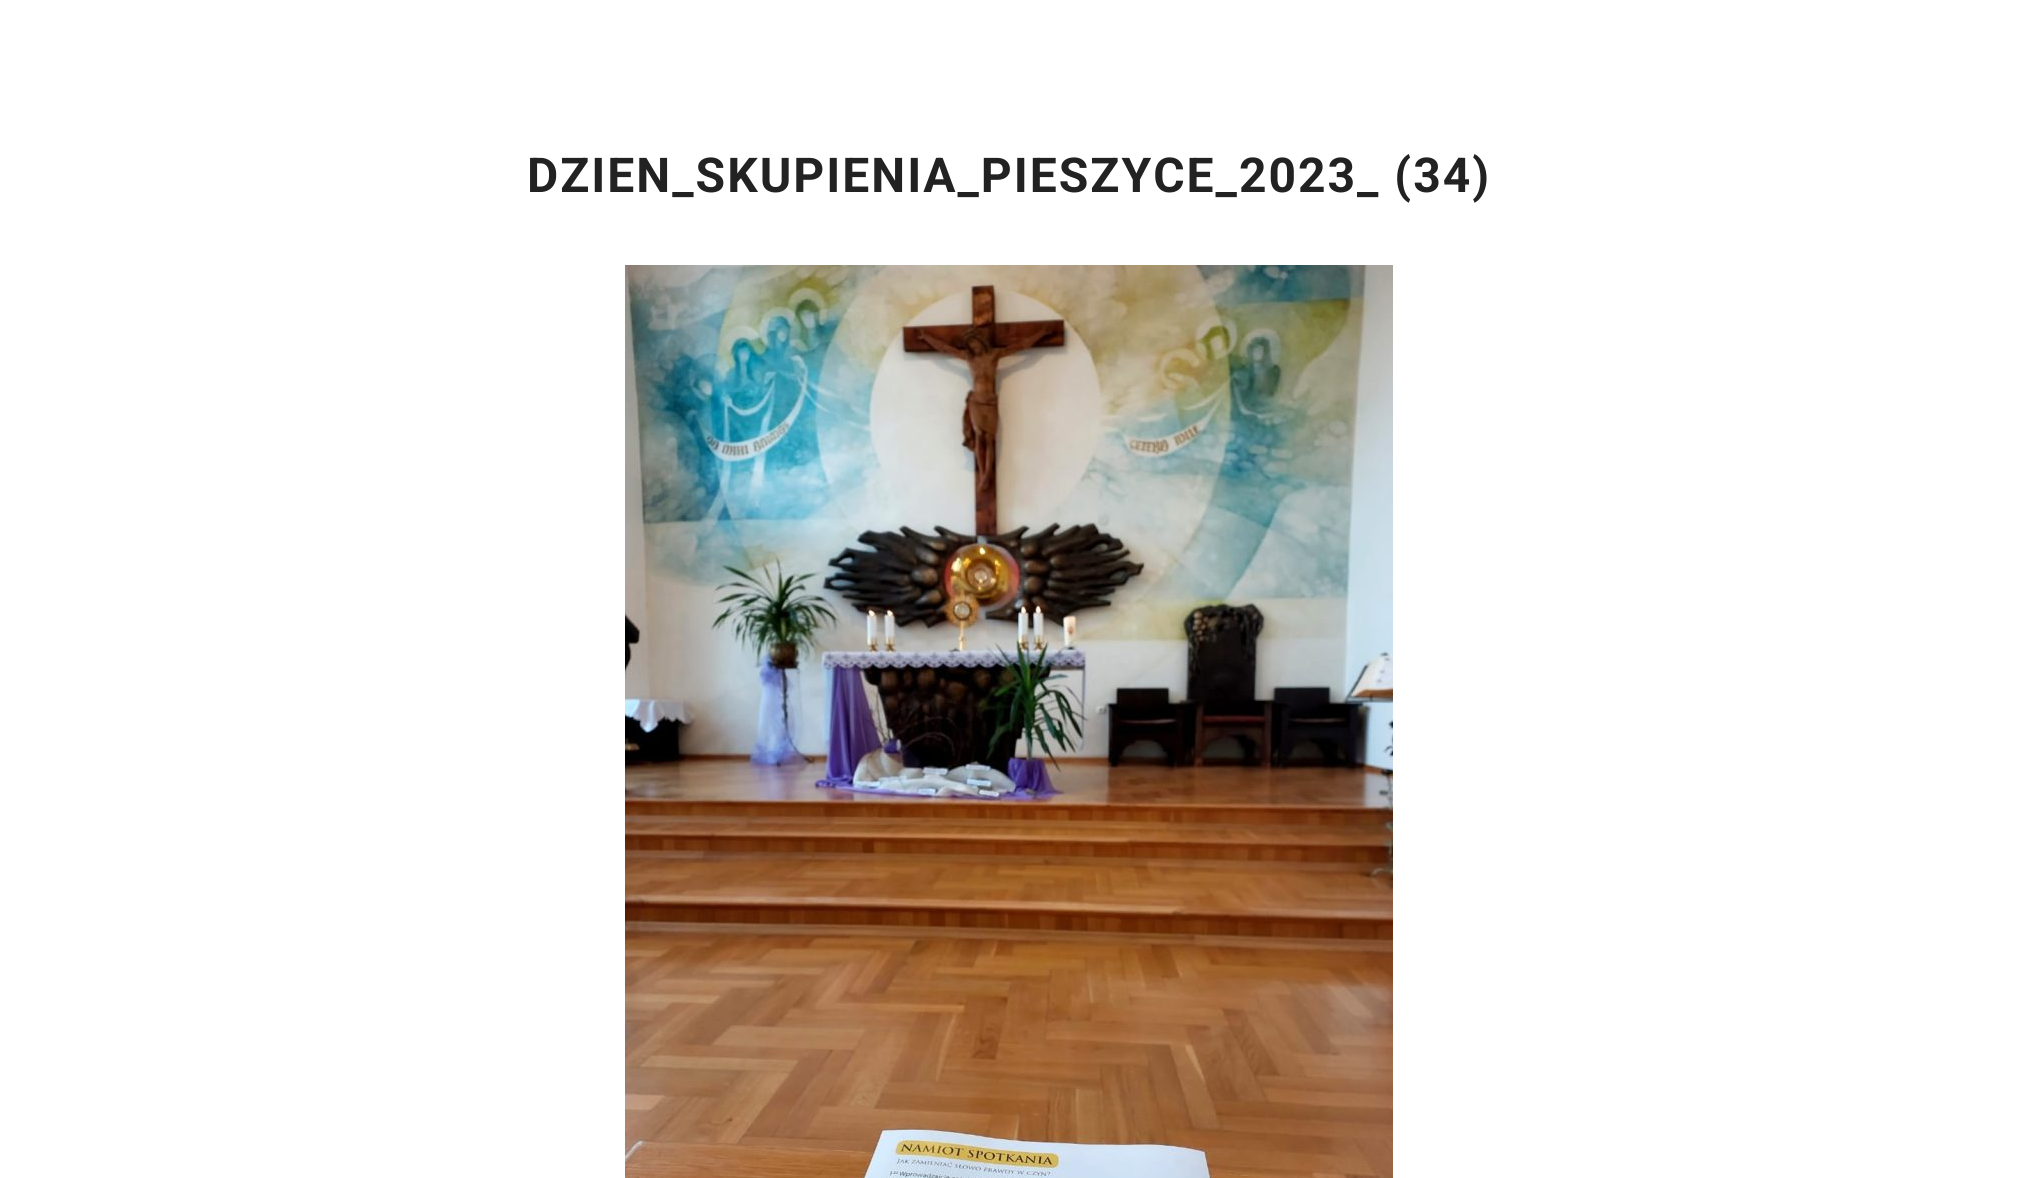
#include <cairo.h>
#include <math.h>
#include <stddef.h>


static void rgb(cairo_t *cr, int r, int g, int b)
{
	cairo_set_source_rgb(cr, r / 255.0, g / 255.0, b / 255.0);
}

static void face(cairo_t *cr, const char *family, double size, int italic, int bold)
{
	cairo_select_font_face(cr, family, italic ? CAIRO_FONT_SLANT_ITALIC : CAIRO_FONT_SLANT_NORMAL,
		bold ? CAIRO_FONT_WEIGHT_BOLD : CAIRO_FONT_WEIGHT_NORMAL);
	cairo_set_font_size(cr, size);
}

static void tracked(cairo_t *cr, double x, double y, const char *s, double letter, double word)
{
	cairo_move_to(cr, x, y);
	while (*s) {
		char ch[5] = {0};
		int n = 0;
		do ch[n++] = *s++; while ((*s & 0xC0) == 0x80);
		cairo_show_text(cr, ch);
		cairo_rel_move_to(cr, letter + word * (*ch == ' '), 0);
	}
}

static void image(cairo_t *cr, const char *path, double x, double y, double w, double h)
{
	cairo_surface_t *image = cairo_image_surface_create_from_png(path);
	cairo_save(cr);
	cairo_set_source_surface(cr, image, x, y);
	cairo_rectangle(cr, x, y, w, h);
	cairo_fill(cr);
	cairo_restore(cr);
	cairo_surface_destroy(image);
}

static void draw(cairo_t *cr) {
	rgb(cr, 255, 255, 255);
	cairo_paint(cr);
	face(cr, "Roboto", 48, 0, 1);
	rgb(cr, 34, 34, 34);
	tracked(cr, 527, 192, "DZIEN_SKUPIENIA_PIESZYCE_2023_ (34)", 2, 0);
	image(cr, "image0.png", 625, 265, 768, 913);
}

int main(void) {
	cairo_surface_t *surface = cairo_image_surface_create(CAIRO_FORMAT_RGB24, 2018, 1178);
	cairo_t *cr = cairo_create(surface);
	cairo_font_options_t *options = cairo_font_options_create();
	cairo_font_options_set_hint_metrics(options, CAIRO_HINT_METRICS_OFF);
	cairo_font_options_set_hint_style(options, CAIRO_HINT_STYLE_NONE);
	cairo_set_font_options(cr, options);
	cairo_set_miter_limit(cr, 4);
	draw(cr);
	cairo_surface_write_to_png(surface, "render.png");
	cairo_font_options_destroy(options);
	cairo_destroy(cr);
	cairo_surface_destroy(surface);
	return 0;
}
